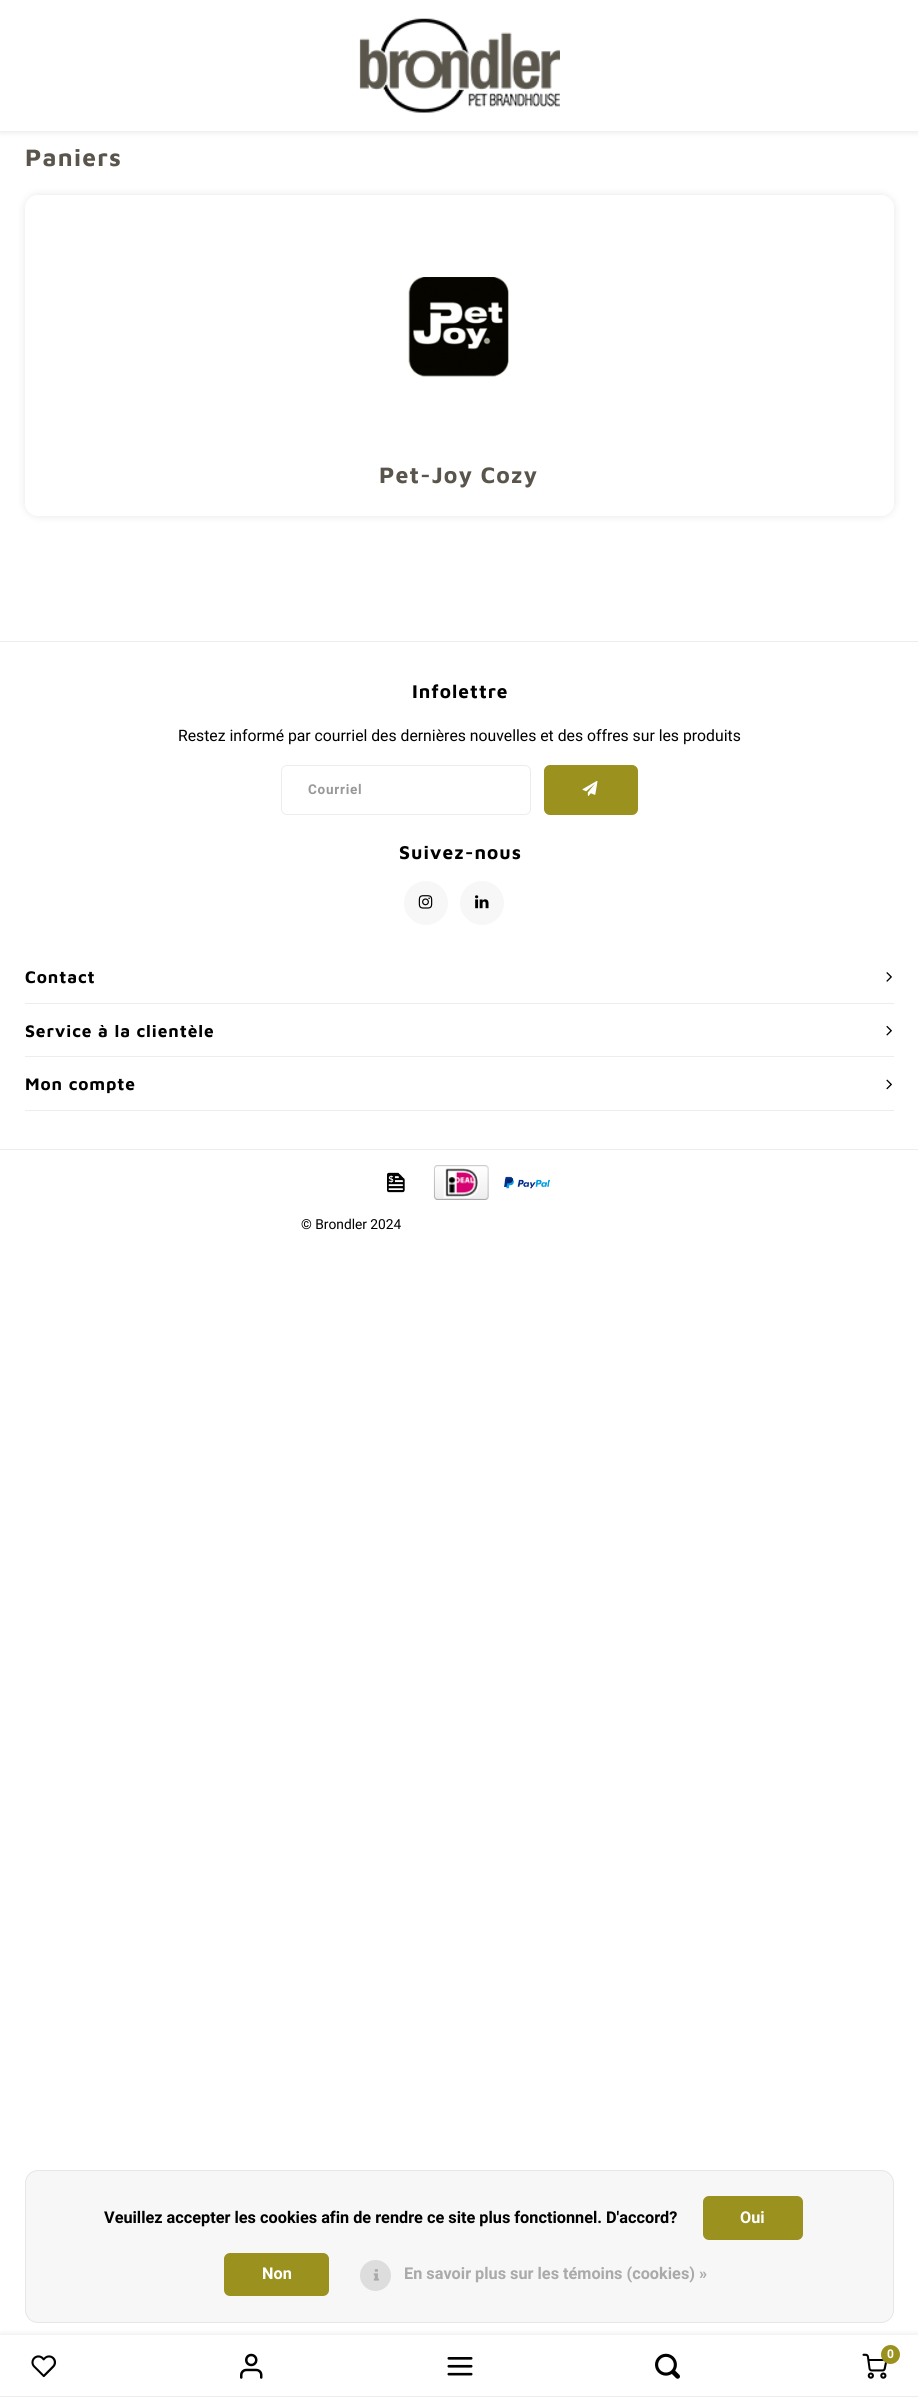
#include <cairo.h>
#include <math.h>
#include <stddef.h>


static void rgb(cairo_t *cr, int r, int g, int b)
{
	cairo_set_source_rgb(cr, r / 255.0, g / 255.0, b / 255.0);
}

static void face(cairo_t *cr, const char *family, double size, int italic, int bold)
{
	cairo_select_font_face(cr, family, italic ? CAIRO_FONT_SLANT_ITALIC : CAIRO_FONT_SLANT_NORMAL,
		bold ? CAIRO_FONT_WEIGHT_BOLD : CAIRO_FONT_WEIGHT_NORMAL);
	cairo_set_font_size(cr, size);
}

static void label(cairo_t *cr, double x, double y, const char *s)
{
	cairo_move_to(cr, x, y);
	cairo_show_text(cr, s);
}

static void tracked(cairo_t *cr, double x, double y, const char *s, double letter, double word)
{
	cairo_move_to(cr, x, y);
	while (*s) {
		char ch[5] = {0};
		int n = 0;
		do ch[n++] = *s++; while ((*s & 0xC0) == 0x80);
		cairo_show_text(cr, ch);
		cairo_rel_move_to(cr, letter + word * (*ch == ' '), 0);
	}
}

static void rect(cairo_t *cr, double x, double y, double w, double h)
{
	cairo_rectangle(cr, x, y, w, h);
	cairo_fill(cr);
}

static void rrect(cairo_t *cr, double x, double y, double w, double h, double r)
{
	cairo_new_sub_path(cr);
	cairo_arc(cr, x + w - r, y + h - r, r, 0, M_PI / 2);
	cairo_arc(cr, x + r, y + h - r, r, M_PI / 2, M_PI);
	cairo_arc(cr, x + r, y + r, r, M_PI, 1.5 * M_PI);
	cairo_arc(cr, x + w - r, y + r, r, 1.5 * M_PI, 2 * M_PI);
	cairo_close_path(cr);
}

static void soft_shadow(cairo_t *cr, double x, double y, double w, double h, double r, double blur, double alpha)
{
	cairo_push_group_with_content(cr, CAIRO_CONTENT_ALPHA);
	cairo_set_operator(cr, CAIRO_OPERATOR_SOURCE);
	for (int i = 15; i >= -15 && fmin(w, h) + blur * i / 3 > 0; i -= 2) {
		double e = blur * i / 6;
		cairo_set_source_rgba(cr, 0, 0, 0, alpha * erfc((i - 1) / 8.5) / 2);
		rrect(cr, x - e, y - e, w + 2 * e, h + 2 * e, fmax(0, fmin(r + e + blur * .6, fmin(w, h) / 2 + e)));
		cairo_fill(cr);
	}
	cairo_pattern_t *soft = cairo_pop_group(cr);
	cairo_mask(cr, soft);
	cairo_pattern_destroy(soft);
}

static void image(cairo_t *cr, const char *path, double x, double y, double w, double h)
{
	cairo_surface_t *image = cairo_image_surface_create_from_png(path);
	cairo_save(cr);
	cairo_set_source_surface(cr, image, x, y);
	cairo_rectangle(cr, x, y, w, h);
	cairo_fill(cr);
	cairo_restore(cr);
	cairo_surface_destroy(image);
}

static void draw(cairo_t *cr) {
	rgb(cr, 255, 255, 255);
	cairo_paint(cr);
	rgb(cr, 0, 0, 0);
	soft_shadow(cr, 0, 1, 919, 132, 0, 2.5, 0.08);
	rgb(cr, 255, 255, 255);
	rect(cr, 0, 0, 918, 131);
	image(cr, "image0.png", 359, 18, 201, 95);
	face(cr, "Maven Pro", 24.5, 0, 1);
	rgb(cr, 90, 85, 76);
	tracked(cr, 25, 166, "Paniers", 1.25, 0);
	cairo_save(cr);
	cairo_set_fill_rule(cr, CAIRO_FILL_RULE_EVEN_ODD);
	cairo_new_path(cr);
	cairo_move_to(cr, 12, 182);
	cairo_line_to(cr, 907, 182);
	cairo_line_to(cr, 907, 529);
	cairo_line_to(cr, 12, 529);
	cairo_close_path(cr);
	cairo_move_to(cr, 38, 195);
	cairo_line_to(cr, 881, 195);
	cairo_curve_to(cr, 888, 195, 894, 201, 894, 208);
	cairo_line_to(cr, 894, 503);
	cairo_curve_to(cr, 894, 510, 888, 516, 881, 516);
	cairo_line_to(cr, 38, 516);
	cairo_curve_to(cr, 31, 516, 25, 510, 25, 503);
	cairo_line_to(cr, 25, 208);
	cairo_curve_to(cr, 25, 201, 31, 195, 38, 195);
	cairo_close_path(cr);
	cairo_clip(cr);
	rgb(cr, 0, 0, 0);
	soft_shadow(cr, 25, 195, 869, 321, 13, 4, 0.1);
	cairo_restore(cr);
	image(cr, "image1.png", 408, 277, 101, 100);
	face(cr, "Maven Pro", 23, 0, 1);
	tracked(cr, 379, 483, "Pet-Joy Cozy", 1.1, 0);
	rgb(cr, 237, 237, 237);
	rect(cr, 0, 641, 918, 1);
	face(cr, "Maven Pro", 19, 0, 1);
	rgb(cr, 0, 0, 0);
	tracked(cr, 412, 698, "Infolettre", 1, 0);
	face(cr, "Heebo", 15.75, 0, 0);
	label(cr, 178, 741, "Restez informé par courriel des dernières nouvelles et des offres sur les produits");
	rrect(cr, 281.5, 765.5, 249, 49, 5.5);
	rgb(cr, 237, 237, 237);
	cairo_set_line_width(cr, 1);
	cairo_stroke(cr);
	face(cr, "Heebo", 13.5, 0, 1);
	rgb(cr, 153, 153, 153);
	tracked(cr, 308, 794, "Courriel", 0.75, 0);
	rgb(cr, 154, 145, 30);
	rrect(cr, 544, 765, 94, 50, 6);
	cairo_fill(cr);
	image(cr, "image2.png", 582, 781, 16, 15);
	face(cr, "Maven Pro", 19, 0, 1);
	rgb(cr, 0, 0, 0);
	tracked(cr, 399, 859, "Suivez-nous", 1, 0);
	rgb(cr, 247, 247, 247);
	cairo_new_path(cr);
	cairo_arc(cr, 426, 903, 22, 0, 2 * M_PI);
	cairo_fill(cr);
	image(cr, "image3.png", 418, 895, 15, 14);
	cairo_arc(cr, 482, 903, 22, 0, 2 * M_PI);
	cairo_fill(cr);
	image(cr, "image4.png", 475, 895, 14, 14);
	rgb(cr, 237, 237, 237);
	rect(cr, 25, 1003, 869, 1);
	face(cr, "Maven Pro", 17.25, 0, 1);
	rgb(cr, 0, 0, 0);
	tracked(cr, 25, 983, "Contact", 0.9, 0);
	image(cr, "image5.png", 886, 972, 6, 10);
	rgb(cr, 237, 237, 237);
	rect(cr, 25, 1056, 869, 1);
	rgb(cr, 0, 0, 0);
	tracked(cr, 25, 1037, "Service à la clientèle", 0.9, 0);
	image(cr, "image6.png", 886, 1025, 6, 11);
	rgb(cr, 237, 237, 237);
	rect(cr, 25, 1110, 869, 1);
	rgb(cr, 0, 0, 0);
	tracked(cr, 25, 1090, "Mon compte", 0.9, 0);
	image(cr, "image7.png", 886, 1079, 6, 11);
	rgb(cr, 237, 237, 237);
	rect(cr, 0, 1149, 918, 1);
	image(cr, "image8.png", 387, 1172, 18, 21);
	image(cr, "image9.png", 433, 1165, 56, 35);
	image(cr, "image10.png", 504, 1176, 46, 13);
	face(cr, "Heebo", 13.75, 0, 0);
	rgb(cr, 0, 0, 0);
	label(cr, 301, 1229, "© Brondler 2024");
	rgb(cr, 247, 247, 247);
	rrect(cr, 25, 2170, 869, 153, 13);
	cairo_fill(cr);
	rrect(cr, 25.5, 2170.5, 868, 152, 12.5);
	cairo_set_source_rgba(cr, 0, 0, 0, 0.07);
	cairo_stroke(cr);
	face(cr, "Heebo", 16.25, 0, 1);
	rgb(cr, 0, 0, 0);
	label(cr, 104, 2223, "Veuillez accepter les cookies afin de rendre ce site plus fonctionnel. D'accord?");
	rgb(cr, 154, 145, 30);
	rrect(cr, 703, 2196, 100, 44, 6);
	cairo_fill(cr);
	rgb(cr, 255, 255, 255);
	label(cr, 740, 2223, "Oui");
	rgb(cr, 154, 145, 30);
	rrect(cr, 224, 2253, 105, 43, 6);
	cairo_fill(cr);
	rgb(cr, 255, 255, 255);
	label(cr, 262, 2279, "Non");
	rgb(cr, 221, 221, 221);
	cairo_new_path(cr);
	cairo_arc(cr, 375.5, 2275.5, 15.5, 0, 2 * M_PI);
	cairo_fill(cr);
	image(cr, "image11.png", 373, 2269, 6, 12);
	rgb(cr, 170, 170, 170);
	label(cr, 404, 2279, "En savoir plus sur les témoins (cookies) »");
	rgb(cr, 0, 0, 0);
	soft_shadow(cr, 0, 2334, 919, 62, 0, 3, 0.08);
	rgb(cr, 255, 255, 255);
	rect(cr, 0, 2335, 918, 61);
	rgb(cr, 237, 237, 237);
	rect(cr, 0, 2396, 918, 1);
	image(cr, "image12.png", 31, 2355, 26, 23);
	image(cr, "image13.png", 240, 2353, 23, 26);
	image(cr, "image14.png", 447, 2357, 26, 19);
	image(cr, "image15.png", 655, 2353, 25, 26);
	image(cr, "image16.png", 862, 2353, 25, 26);
	rgb(cr, 154, 145, 30);
	cairo_arc(cr, 890.5, 2354.5, 9.5, 0, 2 * M_PI);
	cairo_fill(cr);
	face(cr, "Heebo", 12, 0, 1);
	rgb(cr, 255, 255, 255);
	label(cr, 887, 2358, "0");
}

int main(void) {
	cairo_surface_t *surface = cairo_image_surface_create(CAIRO_FORMAT_RGB24, 918, 2397);
	cairo_t *cr = cairo_create(surface);
	cairo_font_options_t *options = cairo_font_options_create();
	cairo_font_options_set_hint_metrics(options, CAIRO_HINT_METRICS_OFF);
	cairo_font_options_set_hint_style(options, CAIRO_HINT_STYLE_NONE);
	cairo_set_font_options(cr, options);
	cairo_set_miter_limit(cr, 4);
	draw(cr);
	cairo_surface_write_to_png(surface, "render.png");
	cairo_font_options_destroy(options);
	cairo_destroy(cr);
	cairo_surface_destroy(surface);
	return 0;
}
